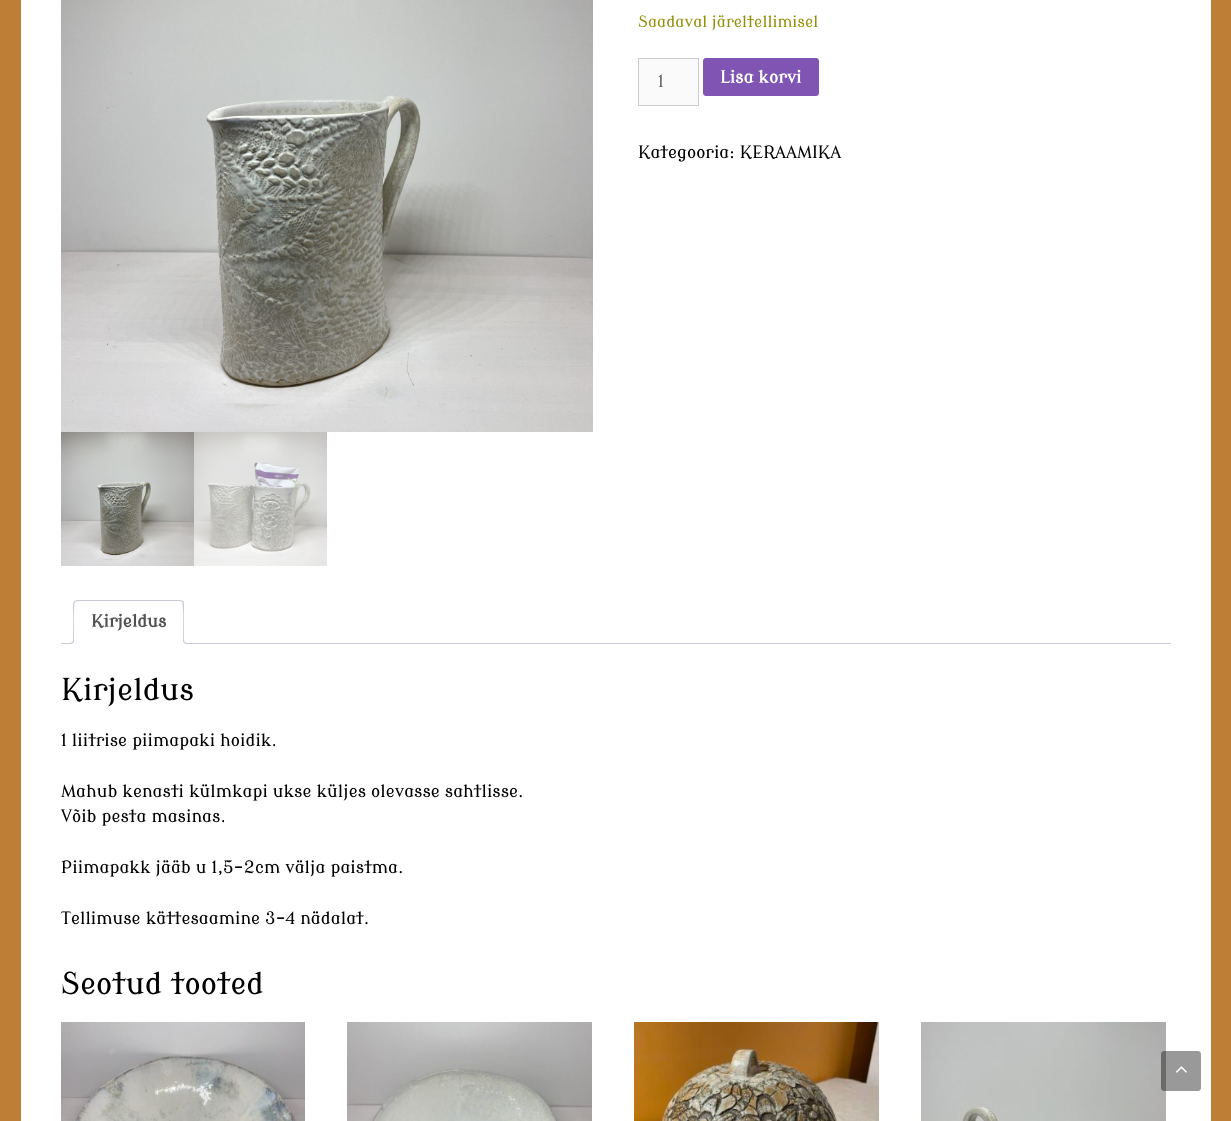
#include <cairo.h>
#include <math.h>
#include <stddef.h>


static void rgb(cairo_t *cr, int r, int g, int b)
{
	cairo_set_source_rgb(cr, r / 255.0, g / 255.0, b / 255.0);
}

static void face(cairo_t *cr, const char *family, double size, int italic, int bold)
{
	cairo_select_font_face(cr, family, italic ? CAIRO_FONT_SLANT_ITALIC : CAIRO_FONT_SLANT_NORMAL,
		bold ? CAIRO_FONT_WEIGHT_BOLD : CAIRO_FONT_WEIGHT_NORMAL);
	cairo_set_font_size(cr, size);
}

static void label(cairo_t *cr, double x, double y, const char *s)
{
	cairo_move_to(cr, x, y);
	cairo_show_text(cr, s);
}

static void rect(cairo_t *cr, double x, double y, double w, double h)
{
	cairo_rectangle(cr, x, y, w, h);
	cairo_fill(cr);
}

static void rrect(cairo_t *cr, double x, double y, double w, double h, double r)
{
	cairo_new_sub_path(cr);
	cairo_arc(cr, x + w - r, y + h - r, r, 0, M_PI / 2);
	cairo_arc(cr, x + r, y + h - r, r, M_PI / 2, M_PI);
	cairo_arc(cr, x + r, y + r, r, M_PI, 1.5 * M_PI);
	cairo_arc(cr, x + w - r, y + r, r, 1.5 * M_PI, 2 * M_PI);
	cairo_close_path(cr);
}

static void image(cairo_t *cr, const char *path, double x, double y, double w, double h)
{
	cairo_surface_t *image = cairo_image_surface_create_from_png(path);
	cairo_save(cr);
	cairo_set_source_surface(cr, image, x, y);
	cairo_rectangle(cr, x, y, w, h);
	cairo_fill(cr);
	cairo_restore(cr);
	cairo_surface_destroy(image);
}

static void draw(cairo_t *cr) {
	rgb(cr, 191, 126, 53);
	cairo_paint(cr);
	rgb(cr, 255, 255, 255);
	rect(cr, 21, 0, 1190, 1121);
	image(cr, "image0.png", 61, 0, 532, 432);
	image(cr, "image1.png", 61, 432, 133, 134);
	image(cr, "image2.png", 194, 432, 133, 134);
	face(cr, "Modern Antiqua", 15.6, 0, 0);
	rgb(cr, 149, 142, 9);
	label(cr, 638, 27, "Saadaval järeltellimisel");
	rgb(cr, 250, 250, 250);
	cairo_rectangle(cr, 638.5, 58.5, 60, 47);
	cairo_fill_preserve(cr);
	rgb(cr, 204, 204, 204);
	cairo_set_line_width(cr, 1);
	cairo_stroke(cr);
	face(cr, "Modern Antiqua", 17, 0, 0);
	rgb(cr, 102, 102, 102);
	label(cr, 658, 87, "1");
	rgb(cr, 127, 84, 179);
	rrect(cr, 703, 58, 116, 38, 3);
	cairo_fill(cr);
	face(cr, "Modern Antiqua", 17, 0, 1);
	rgb(cr, 255, 255, 255);
	label(cr, 720, 83, "Lisa korvi");
	face(cr, "Modern Antiqua", 17, 0, 0);
	rgb(cr, 0, 0, 0);
	label(cr, 638, 158, "Kategooria: KERAAMIKA");
	rgb(cr, 207, 200, 216);
	rect(cr, 61, 643, 1110, 1);
	rgb(cr, 255, 255, 255);
	cairo_new_path(cr);
	cairo_move_to(cr, 77, 600);
	cairo_line_to(cr, 180, 600);
	cairo_curve_to(cr, 182, 600, 184, 602, 184, 604);
	cairo_line_to(cr, 184, 644);
	cairo_line_to(cr, 73, 644);
	cairo_line_to(cr, 73, 604);
	cairo_curve_to(cr, 73, 602, 75, 600, 77, 600);
	cairo_close_path(cr);
	cairo_fill(cr);
	rgb(cr, 207, 200, 216);
	cairo_new_path(cr);
	cairo_move_to(cr, 77, 600);
	cairo_line_to(cr, 74, 601);
	cairo_line_to(cr, 75, 602);
	cairo_line_to(cr, 77, 601);
	cairo_line_to(cr, 180, 601);
	cairo_line_to(cr, 182, 602);
	cairo_line_to(cr, 183, 601);
	cairo_line_to(cr, 180, 600);
	cairo_close_path(cr);
	cairo_fill(cr);
	cairo_new_path(cr);
	cairo_move_to(cr, 184, 644);
	cairo_line_to(cr, 184, 604);
	cairo_curve_to(cr, 184, 603, 184, 602, 183, 601);
	cairo_line_to(cr, 182, 602);
	cairo_curve_to(cr, 184, 604, 183, 638, 183, 643);
	cairo_close_path(cr);
	cairo_fill(cr);
	rgb(cr, 255, 255, 255);
	cairo_new_path(cr);
	cairo_move_to(cr, 184, 644);
	cairo_line_to(cr, 183, 643);
	cairo_line_to(cr, 74, 643);
	cairo_line_to(cr, 73, 644);
	cairo_close_path(cr);
	cairo_fill(cr);
	rgb(cr, 207, 200, 216);
	cairo_new_path(cr);
	cairo_move_to(cr, 73, 644);
	cairo_line_to(cr, 74, 643);
	cairo_curve_to(cr, 74, 638, 73, 604, 75, 602);
	cairo_line_to(cr, 74, 601);
	cairo_line_to(cr, 73, 604);
	cairo_close_path(cr);
	cairo_fill(cr);
	face(cr, "Modern Antiqua", 17, 0, 1);
	rgb(cr, 81, 81, 81);
	label(cr, 91, 627, "Kirjeldus");
	cairo_save(cr);
	cairo_rectangle(cr, 61, 600, 1110, 44);
	cairo_clip(cr);
	rgb(cr, 255, 255, 255);
	cairo_new_path(cr);
	cairo_move_to(cr, 71, 644);
	cairo_line_to(cr, 71, 646);
	cairo_curve_to(cr, 74.5, 646, 76, 644.5, 76, 641);
	cairo_line_to(cr, 74, 641);
	cairo_curve_to(cr, 73.5, 642.5, 72.5, 643.5, 71, 644);
	cairo_close_path(cr);
	cairo_fill(cr);
	cairo_restore(cr);
	rgb(cr, 207, 200, 216);
	cairo_set_fill_rule(cr, CAIRO_FILL_RULE_EVEN_ODD);
	cairo_new_path(cr);
	cairo_move_to(cr, 69, 639);
	cairo_line_to(cr, 74, 639);
	cairo_curve_to(cr, 74, 642.5, 72.5, 644, 69, 644);
	cairo_close_path(cr);
	cairo_move_to(cr, 69, 639);
	cairo_line_to(cr, 73, 639);
	cairo_curve_to(cr, 73, 642, 72, 643, 69, 643);
	cairo_close_path(cr);
	cairo_fill(cr);
	cairo_save(cr);
	cairo_set_fill_rule(cr, CAIRO_FILL_RULE_WINDING);
	cairo_rectangle(cr, 61, 600, 1110, 44);
	cairo_clip(cr);
	rgb(cr, 255, 255, 255);
	cairo_new_path(cr);
	cairo_move_to(cr, 181, 641);
	cairo_curve_to(cr, 181, 644.5, 182.5, 646, 186, 646);
	cairo_line_to(cr, 186, 644);
	cairo_curve_to(cr, 184.5, 643.5, 183.5, 642.5, 183, 641);
	cairo_close_path(cr);
	cairo_fill(cr);
	cairo_restore(cr);
	cairo_new_path(cr);
	cairo_move_to(cr, 183, 639);
	cairo_line_to(cr, 188, 639);
	cairo_line_to(cr, 188, 644);
	cairo_curve_to(cr, 185.5, 644, 183, 643, 183, 640);
	cairo_close_path(cr);
	cairo_move_to(cr, 184, 639);
	cairo_line_to(cr, 188, 639);
	cairo_line_to(cr, 188, 643);
	cairo_curve_to(cr, 186, 643, 184, 642.5, 184, 640);
	cairo_close_path(cr);
	cairo_fill(cr);
	face(cr, "Modern Antiqua", 30, 0, 0);
	rgb(cr, 0, 0, 0);
	label(cr, 61, 700, "Kirjeldus");
	face(cr, "Modern Antiqua", 17, 0, 0);
	label(cr, 61, 746, "1 liitrise piimapaki hoidik.");
	label(cr, 61, 797, "Mahub kenasti külmkapi ukse küljes olevasse sahtlisse.");
	label(cr, 61, 822, "Võib pesta masinas.");
	label(cr, 61, 873, "Piimapakk jääb u 1,5-2cm välja paistma.");
	label(cr, 61, 924, "Tellimuse kättesaamine 3-4 nädalat.");
	face(cr, "Modern Antiqua", 30, 0, 0);
	label(cr, 61, 994, "Seotud tooted");
	image(cr, "image3.png", 61, 1022, 244, 99);
	image(cr, "image4.png", 347, 1022, 245, 99);
	image(cr, "image5.png", 634, 1022, 245, 99);
	image(cr, "image6.png", 921, 1022, 245, 99);
	cairo_set_source_rgba(cr, 0, 0, 0, 0.4);
	rrect(cr, 1161, 1051, 40, 40, 3);
	cairo_fill(cr);
	image(cr, "image7.png", 1176, 1066, 11, 7);
}

int main(void) {
	cairo_surface_t *surface = cairo_image_surface_create(CAIRO_FORMAT_RGB24, 1231, 1121);
	cairo_t *cr = cairo_create(surface);
	cairo_font_options_t *options = cairo_font_options_create();
	cairo_font_options_set_hint_metrics(options, CAIRO_HINT_METRICS_OFF);
	cairo_font_options_set_hint_style(options, CAIRO_HINT_STYLE_NONE);
	cairo_set_font_options(cr, options);
	cairo_set_miter_limit(cr, 4);
	draw(cr);
	cairo_surface_write_to_png(surface, "render.png");
	cairo_font_options_destroy(options);
	cairo_destroy(cr);
	cairo_surface_destroy(surface);
	return 0;
}
